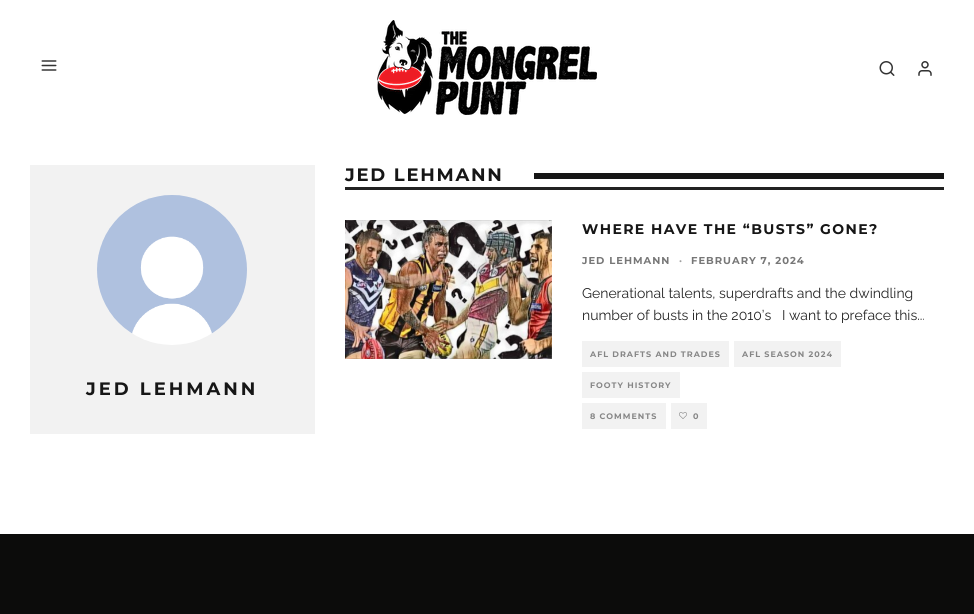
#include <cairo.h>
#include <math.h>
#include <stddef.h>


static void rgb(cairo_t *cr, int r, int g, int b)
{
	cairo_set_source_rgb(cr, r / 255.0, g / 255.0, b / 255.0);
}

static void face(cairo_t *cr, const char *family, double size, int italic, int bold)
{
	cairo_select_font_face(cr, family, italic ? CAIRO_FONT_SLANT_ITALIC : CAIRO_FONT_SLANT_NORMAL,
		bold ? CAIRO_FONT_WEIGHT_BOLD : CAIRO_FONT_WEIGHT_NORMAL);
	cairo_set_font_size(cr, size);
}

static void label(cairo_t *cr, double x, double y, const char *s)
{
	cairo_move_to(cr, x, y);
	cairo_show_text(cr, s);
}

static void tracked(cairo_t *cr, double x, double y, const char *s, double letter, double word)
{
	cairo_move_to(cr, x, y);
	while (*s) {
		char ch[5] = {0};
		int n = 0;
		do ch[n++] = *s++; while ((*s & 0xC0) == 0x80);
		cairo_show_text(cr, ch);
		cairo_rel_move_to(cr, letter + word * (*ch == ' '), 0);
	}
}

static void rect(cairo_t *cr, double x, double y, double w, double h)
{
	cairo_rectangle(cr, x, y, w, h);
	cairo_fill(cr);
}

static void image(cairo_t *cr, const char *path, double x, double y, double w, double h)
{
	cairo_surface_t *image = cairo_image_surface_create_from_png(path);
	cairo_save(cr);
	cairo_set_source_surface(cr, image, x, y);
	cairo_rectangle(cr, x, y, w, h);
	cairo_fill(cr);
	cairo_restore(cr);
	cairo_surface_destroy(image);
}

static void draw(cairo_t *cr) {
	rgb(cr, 255, 255, 255);
	cairo_paint(cr);
	image(cr, "image0.png", 41, 60, 16, 11);
	image(cr, "image1.png", 377, 20, 220, 95);
	image(cr, "image2.png", 879, 61, 16, 15);
	image(cr, "image3.png", 918, 61, 14, 15);
	rgb(cr, 242, 242, 242);
	rect(cr, 30, 165, 285, 269);
	image(cr, "image4.png", 97, 195, 150, 150);
	face(cr, "Montserrat", 18, 0, 1);
	rgb(cr, 22, 22, 22);
	tracked(cr, 86, 395, "JED LEHMANN", 3, 0);
	rgb(cr, 34, 34, 34);
	rect(cr, 345, 187, 599, 3);
	rgb(cr, 22, 22, 22);
	tracked(cr, 345, 181, "JED LEHMANN", 1.75, 0);
	rect(cr, 534, 173, 410, 6);
	image(cr, "image5.png", 345, 220, 207, 139);
	face(cr, "Montserrat", 14, 0, 1);
	tracked(cr, 582, 234, "WHERE HAVE THE “BUSTS” GONE?", 1.4, 0);
	face(cr, "Montserrat", 10, 0, 1);
	rgb(cr, 119, 119, 119);
	tracked(cr, 582, 264, "JED LEHMANN", 1, 0);
	rgb(cr, 160, 160, 160);
	tracked(cr, 679, 264, "·", 1, 0);
	rgb(cr, 119, 119, 119);
	tracked(cr, 691, 264, "FEBRUARY 7, 2024", 1, 0);
	face(cr, "Raleway", 14, 0, 0);
	rgb(cr, 38, 38, 38);
	label(cr, 582, 298, "Generational talents, superdrafts and the dwindling");
	label(cr, 582, 320, "number of busts in the 2010’s   I want to preface this...");
	rgb(cr, 242, 242, 242);
	rect(cr, 582, 341, 147, 26);
	face(cr, "Montserrat", 8, 0, 1);
	rgb(cr, 134, 134, 134);
	tracked(cr, 590, 357, "AFL DRAFTS AND TRADES", 1, 0);
	rgb(cr, 242, 242, 242);
	rect(cr, 734, 341, 107, 26);
	rgb(cr, 134, 134, 134);
	tracked(cr, 742, 357, "AFL SEASON 2024", 1, 0);
	rgb(cr, 242, 242, 242);
	rect(cr, 582, 372, 98, 26);
	rgb(cr, 134, 134, 134);
	tracked(cr, 590, 388, "FOOTY HISTORY", 1, 0);
	rgb(cr, 242, 242, 242);
	rect(cr, 582, 403, 84, 26);
	rgb(cr, 134, 134, 134);
	tracked(cr, 590, 419, "8 COMMENTS", 1, 0);
	rgb(cr, 242, 242, 242);
	rect(cr, 671, 403, 36, 26);
	image(cr, "image6.png", 679, 412, 8, 7);
	rgb(cr, 134, 134, 134);
	tracked(cr, 693, 419, "0", 1, 0);
	rgb(cr, 12, 12, 11);
	rect(cr, 0, 534, 974, 80);
}

int main(void) {
	cairo_surface_t *surface = cairo_image_surface_create(CAIRO_FORMAT_RGB24, 974, 614);
	cairo_t *cr = cairo_create(surface);
	cairo_font_options_t *options = cairo_font_options_create();
	cairo_font_options_set_hint_metrics(options, CAIRO_HINT_METRICS_OFF);
	cairo_font_options_set_hint_style(options, CAIRO_HINT_STYLE_NONE);
	cairo_set_font_options(cr, options);
	cairo_set_miter_limit(cr, 4);
	draw(cr);
	cairo_surface_write_to_png(surface, "render.png");
	cairo_font_options_destroy(options);
	cairo_destroy(cr);
	cairo_surface_destroy(surface);
	return 0;
}
